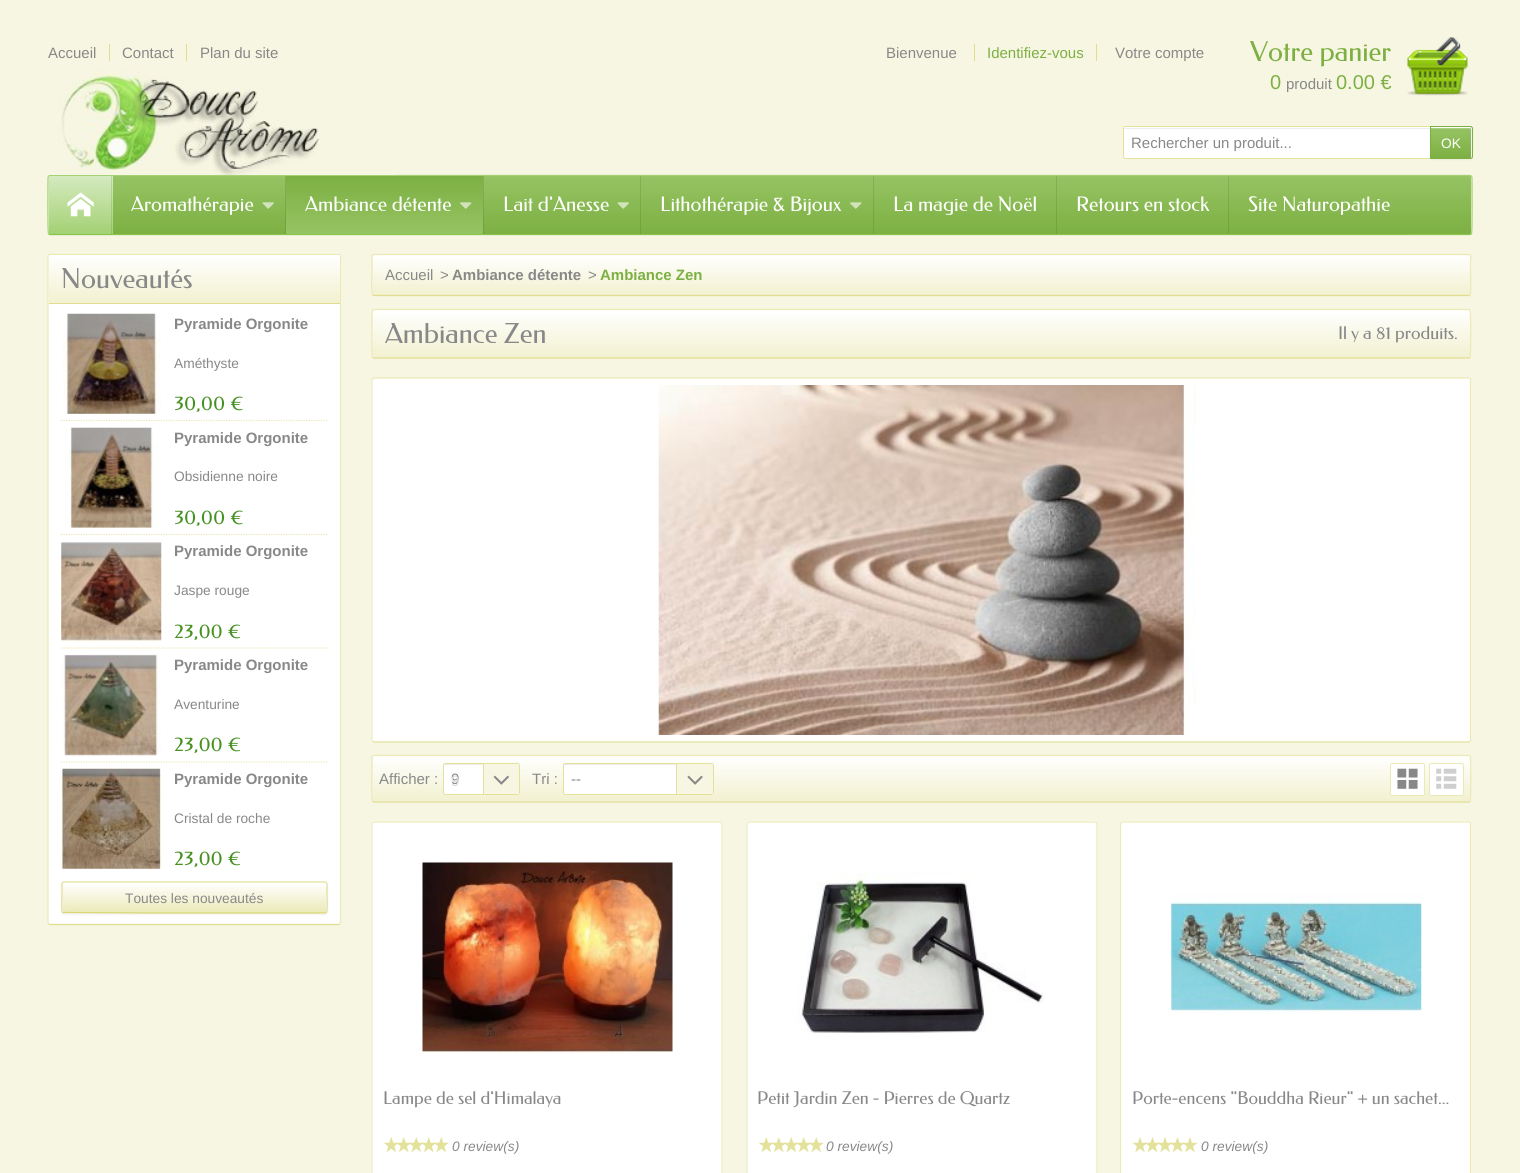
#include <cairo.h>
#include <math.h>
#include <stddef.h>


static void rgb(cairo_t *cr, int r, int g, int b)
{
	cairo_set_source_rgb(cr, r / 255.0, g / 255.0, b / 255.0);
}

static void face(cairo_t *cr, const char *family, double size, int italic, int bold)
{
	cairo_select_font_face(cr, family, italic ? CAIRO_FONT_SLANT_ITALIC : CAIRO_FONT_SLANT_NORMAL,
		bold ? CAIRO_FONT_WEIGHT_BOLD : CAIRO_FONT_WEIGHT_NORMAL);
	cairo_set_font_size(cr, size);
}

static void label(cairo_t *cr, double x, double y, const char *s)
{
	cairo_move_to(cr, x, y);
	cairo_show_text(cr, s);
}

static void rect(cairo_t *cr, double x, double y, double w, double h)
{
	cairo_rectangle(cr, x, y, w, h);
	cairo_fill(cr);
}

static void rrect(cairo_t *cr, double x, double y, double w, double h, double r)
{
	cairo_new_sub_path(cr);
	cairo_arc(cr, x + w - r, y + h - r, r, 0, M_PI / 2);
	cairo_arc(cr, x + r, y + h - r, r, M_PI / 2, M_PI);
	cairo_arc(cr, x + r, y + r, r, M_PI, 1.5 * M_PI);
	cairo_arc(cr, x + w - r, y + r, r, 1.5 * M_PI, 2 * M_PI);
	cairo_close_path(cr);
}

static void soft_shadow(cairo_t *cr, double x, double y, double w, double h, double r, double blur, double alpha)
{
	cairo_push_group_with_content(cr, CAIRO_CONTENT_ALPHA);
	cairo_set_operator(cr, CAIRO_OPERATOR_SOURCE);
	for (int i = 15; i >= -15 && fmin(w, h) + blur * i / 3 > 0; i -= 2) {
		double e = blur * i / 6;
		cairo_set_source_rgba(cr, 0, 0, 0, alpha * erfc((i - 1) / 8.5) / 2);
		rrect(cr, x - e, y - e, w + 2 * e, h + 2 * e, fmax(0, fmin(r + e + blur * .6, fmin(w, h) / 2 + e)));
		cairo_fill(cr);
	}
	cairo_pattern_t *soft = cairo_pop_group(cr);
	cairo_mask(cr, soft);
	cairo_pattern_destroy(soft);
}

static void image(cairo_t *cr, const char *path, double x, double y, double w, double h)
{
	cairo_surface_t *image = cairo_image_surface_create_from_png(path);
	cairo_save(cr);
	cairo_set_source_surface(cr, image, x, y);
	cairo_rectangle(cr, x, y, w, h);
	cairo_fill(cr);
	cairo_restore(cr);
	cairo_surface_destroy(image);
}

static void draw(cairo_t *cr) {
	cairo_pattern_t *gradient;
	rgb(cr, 247, 246, 226);
	cairo_paint(cr);
	face(cr, "Liberation Sans", 15, 0, 0);
	rgb(cr, 136, 136, 136);
	label(cr, 48, 58, "Accueil");
	rgb(cr, 224, 221, 142);
	rect(cr, 109, 44, 1, 17);
	rgb(cr, 136, 136, 136);
	label(cr, 122, 58, "Contact");
	rgb(cr, 224, 221, 142);
	rect(cr, 186, 44, 1, 17);
	rgb(cr, 136, 136, 136);
	label(cr, 200, 58, "Plan du site");
	label(cr, 886, 58, "Bienvenue");
	rgb(cr, 125, 176, 67);
	label(cr, 987, 58, "Identifiez-vous");
	rgb(cr, 224, 221, 142);
	rect(cr, 1096, 44, 1, 17);
	rect(cr, 974, 44, 1, 17);
	rgb(cr, 136, 136, 136);
	label(cr, 1115, 58, "Votre compte");
	image(cr, "image0.png", 1407, 37, 61, 59);
	face(cr, "Federo", 27.5, 0, 0);
	rgb(cr, 125, 176, 67);
	label(cr, 1250, 61, "Votre panier");
	face(cr, "Liberation Sans", 20, 0, 0);
	label(cr, 1270, 89, "0");
	face(cr, "Liberation Sans", 15, 0, 0);
	rgb(cr, 136, 136, 136);
	label(cr, 1286, 89, "produit");
	face(cr, "Liberation Sans", 20, 0, 0);
	rgb(cr, 125, 176, 67);
	label(cr, 1336, 89, "0.00 €");
	gradient = cairo_pattern_create_linear(760, 176, 760, 234);
	cairo_pattern_add_color_stop_rgba(gradient, 0, 0.588, 0.765, 0.388, 1);
	cairo_pattern_add_color_stop_rgba(gradient, 1, 0.49, 0.69, 0.263, 1);
	cairo_set_source(cr, gradient);
	cairo_pattern_destroy(gradient);
	rrect(cr, 49, 176, 1422, 58, 1);
	cairo_fill(cr);
	cairo_new_path(cr);
	cairo_move_to(cr, 1471.5, 234);
	cairo_line_to(cr, 1470, 234.5);
	cairo_line_to(cr, 50, 234.5);
	cairo_line_to(cr, 48.5, 234);
	rgb(cr, 138, 196, 77);
	cairo_set_line_width(cr, 1.2);
	cairo_stroke(cr);
	cairo_new_path(cr);
	cairo_move_to(cr, 48.5, 234);
	cairo_curve_to(cr, 47.5, 232.5, 48, 183.5, 48, 177.5);
	cairo_curve_to(cr, 48, 176.5, 49, 175.5, 50, 175.5);
	cairo_line_to(cr, 1470, 175.5);
	cairo_curve_to(cr, 1471, 175.5, 1472, 176.5, 1472, 177.5);
	cairo_curve_to(cr, 1472, 183.5, 1472.5, 232.5, 1471.5, 234);
	rgb(cr, 163, 209, 115);
	cairo_stroke(cr);
	image(cr, "image1.png", 50, 69, 348, 106);
	rgb(cr, 255, 255, 255);
	rrect(cr, 1123, 126, 350, 33, 2.5);
	cairo_fill(cr);
	rgb(cr, 236, 236, 236);
	cairo_new_path(cr);
	cairo_move_to(cr, 1125, 129);
	cairo_line_to(cr, 1470, 129);
	cairo_curve_to(cr, 1471, 129, 1471, 129, 1471, 130);
	cairo_line_to(cr, 1471, 128);
	cairo_line_to(cr, 1298, 128);
	cairo_line_to(cr, 1125, 128);
	cairo_line_to(cr, 1124, 129);
	cairo_line_to(cr, 1124, 130);
	cairo_curve_to(cr, 1124, 129, 1124, 129, 1125, 129);
	cairo_close_path(cr);
	cairo_fill(cr);
	rrect(cr, 1123.5, 126.5, 349, 32, 2);
	rgb(cr, 227, 225, 154);
	cairo_set_line_width(cr, 1);
	cairo_stroke(cr);
	face(cr, "Liberation Sans", 15, 0, 0);
	rgb(cr, 136, 136, 136);
	label(cr, 1131, 148, "Rechercher un produit...");
	rgb(cr, 0, 0, 0);
	soft_shadow(cr, 1430, 128, 43, 32, 2.5, 1, 0.05);
	gradient = cairo_pattern_create_linear(1451, 128, 1451, 158);
	cairo_pattern_add_color_stop_rgba(gradient, 0, 0.588, 0.765, 0.388, 1);
	cairo_pattern_add_color_stop_rgba(gradient, 1, 0.49, 0.69, 0.263, 1);
	cairo_set_source(cr, gradient);
	cairo_pattern_destroy(gradient);
	cairo_new_path(cr);
	cairo_move_to(cr, 1431, 128);
	cairo_line_to(cr, 1470, 128);
	cairo_curve_to(cr, 1470.5, 128, 1471, 128.5, 1471, 129);
	cairo_line_to(cr, 1471, 157);
	cairo_curve_to(cr, 1471, 157.5, 1470.5, 158, 1470, 158);
	cairo_line_to(cr, 1431, 158);
	cairo_close_path(cr);
	cairo_fill(cr);
	cairo_set_source_rgba(cr, 1, 1, 1, 0.2);
	cairo_new_path(cr);
	cairo_move_to(cr, 1431, 129);
	cairo_line_to(cr, 1470, 129);
	cairo_curve_to(cr, 1471, 129, 1471, 129, 1471, 130);
	cairo_line_to(cr, 1471, 129);
	cairo_curve_to(cr, 1471, 128, 1471, 128, 1470, 128);
	cairo_line_to(cr, 1431, 128);
	cairo_close_path(cr);
	cairo_fill(cr);
	cairo_new_path(cr);
	cairo_move_to(cr, 1430.5, 126.5);
	cairo_line_to(cr, 1470.5, 126.5);
	cairo_curve_to(cr, 1471.5, 126.5, 1472.5, 127.5, 1472.5, 128.5);
	cairo_line_to(cr, 1472.5, 156.5);
	cairo_curve_to(cr, 1472.5, 157.5, 1471.5, 158.5, 1470.5, 158.5);
	cairo_line_to(cr, 1430.5, 158.5);
	cairo_close_path(cr);
	rgb(cr, 125, 176, 67);
	cairo_stroke(cr);
	face(cr, "Liberation Sans", 13.75, 0, 0);
	rgb(cr, 255, 255, 255);
	label(cr, 1441, 148, "OK");
	gradient = cairo_pattern_create_linear(80, 176, 80, 234);
	cairo_pattern_add_color_stop_rgba(gradient, 0, 0.835, 0.918, 0.753, 1);
	cairo_pattern_add_color_stop_rgba(gradient, 1, 0.639, 0.82, 0.451, 1);
	cairo_set_source(cr, gradient);
	cairo_pattern_destroy(gradient);
	rect(cr, 49, 176, 64, 58);
	cairo_set_source_rgba(cr, 0, 0, 0, 0.1);
	rect(cr, 111, 176, 1, 58);
	image(cr, "image2.png", 67, 192, 27, 25);
	gradient = cairo_pattern_create_linear(199, 176, 199, 234);
	cairo_pattern_add_color_stop_rgba(gradient, 0, 0.588, 0.765, 0.388, 1);
	cairo_pattern_add_color_stop_rgba(gradient, 1, 0.49, 0.69, 0.263, 1);
	cairo_set_source(cr, gradient);
	cairo_pattern_destroy(gradient);
	rect(cr, 113, 233, 173, 1);
	cairo_set_source_rgba(cr, 0, 0, 0, 0.1);
	rect(cr, 285, 176, 1, 58);
	face(cr, "Federo", 20, 0, 0);
	rgb(cr, 255, 255, 255);
	label(cr, 131, 211, "Aromathérapie");
	image(cr, "image3.png", 262, 202, 12, 7);
	gradient = cairo_pattern_create_linear(384, 176, 384, 234);
	cairo_pattern_add_color_stop_rgba(gradient, 0, 0.588, 0.765, 0.388, 1);
	cairo_pattern_add_color_stop_rgba(gradient, 1, 0.49, 0.69, 0.263, 1);
	cairo_set_source(cr, gradient);
	cairo_pattern_destroy(gradient);
	rect(cr, 483, 233, 1, 1);
	cairo_set_source_rgba(cr, 0, 0, 0, 0.1);
	rect(cr, 483, 176, 1, 58);
	gradient = cairo_pattern_create_linear(384, 176, 384, 234);
	cairo_pattern_add_color_stop_rgba(gradient, 0, 0.49, 0.69, 0.263, 1);
	cairo_pattern_add_color_stop_rgba(gradient, 1, 0.588, 0.765, 0.388, 1);
	cairo_set_source(cr, gradient);
	cairo_pattern_destroy(gradient);
	rect(cr, 286, 176, 197, 58);
	rgb(cr, 255, 255, 255);
	label(cr, 305, 211, "Ambiance détente");
	image(cr, "image4.png", 460, 202, 12, 7);
	gradient = cairo_pattern_create_linear(562, 176, 562, 234);
	cairo_pattern_add_color_stop_rgba(gradient, 0, 0.588, 0.765, 0.388, 1);
	cairo_pattern_add_color_stop_rgba(gradient, 1, 0.49, 0.69, 0.263, 1);
	cairo_set_source(cr, gradient);
	cairo_pattern_destroy(gradient);
	rect(cr, 484, 233, 157, 1);
	cairo_set_source_rgba(cr, 0, 0, 0, 0.1);
	rect(cr, 640, 176, 1, 58);
	rgb(cr, 255, 255, 255);
	label(cr, 503, 211, "Lait d'Anesse");
	image(cr, "image3.png", 617, 202, 12, 7);
	gradient = cairo_pattern_create_linear(757, 176, 757, 234);
	cairo_pattern_add_color_stop_rgba(gradient, 0, 0.588, 0.765, 0.388, 1);
	cairo_pattern_add_color_stop_rgba(gradient, 1, 0.49, 0.69, 0.263, 1);
	cairo_set_source(cr, gradient);
	cairo_pattern_destroy(gradient);
	rect(cr, 641, 233, 233, 1);
	cairo_set_source_rgba(cr, 0, 0, 0, 0.1);
	rect(cr, 873, 176, 1, 58);
	rgb(cr, 255, 255, 255);
	label(cr, 660, 211, "Lithothérapie & Bijoux");
	image(cr, "image5.png", 850, 202, 12, 7);
	gradient = cairo_pattern_create_linear(965, 176, 965, 234);
	cairo_pattern_add_color_stop_rgba(gradient, 0, 0.588, 0.765, 0.388, 1);
	cairo_pattern_add_color_stop_rgba(gradient, 1, 0.49, 0.69, 0.263, 1);
	cairo_set_source(cr, gradient);
	cairo_pattern_destroy(gradient);
	rect(cr, 874, 233, 184, 1);
	cairo_set_source_rgba(cr, 0, 0, 0, 0.1);
	rect(cr, 1056, 176, 1, 58);
	rgb(cr, 255, 255, 255);
	label(cr, 893, 211, "La magie de Noël");
	gradient = cairo_pattern_create_linear(1143, 176, 1143, 234);
	cairo_pattern_add_color_stop_rgba(gradient, 0, 0.588, 0.765, 0.388, 1);
	cairo_pattern_add_color_stop_rgba(gradient, 1, 0.49, 0.69, 0.263, 1);
	cairo_set_source(cr, gradient);
	cairo_pattern_destroy(gradient);
	rect(cr, 1058, 233, 171, 1);
	cairo_set_source_rgba(cr, 0, 0, 0, 0.1);
	rect(cr, 1228, 176, 1, 58);
	rgb(cr, 255, 255, 255);
	label(cr, 1076, 211, "Retours en stock");
	gradient = cairo_pattern_create_linear(1319, 176, 1319, 234);
	cairo_pattern_add_color_stop_rgba(gradient, 0, 0.588, 0.765, 0.388, 1);
	cairo_pattern_add_color_stop_rgba(gradient, 1, 0.49, 0.69, 0.263, 1);
	cairo_set_source(cr, gradient);
	cairo_pattern_destroy(gradient);
	rect(cr, 1229, 233, 180, 1);
	rgb(cr, 255, 255, 255);
	label(cr, 1248, 211, "Site Naturopathie");
	rrect(cr, 48, 254, 293, 671, 2.5);
	cairo_fill(cr);
	cairo_new_path(cr);
	cairo_move_to(cr, 340, 924);
	cairo_line_to(cr, 339, 924.5);
	cairo_line_to(cr, 50, 924.5);
	cairo_line_to(cr, 48.5, 924);
	rgb(cr, 224, 221, 142);
	cairo_set_line_width(cr, 1.2);
	cairo_stroke(cr);
	cairo_new_path(cr);
	cairo_move_to(cr, 48.5, 924);
	cairo_line_to(cr, 48, 922.5);
	cairo_line_to(cr, 48, 256);
	cairo_line_to(cr, 48.5, 255);
	cairo_line_to(cr, 50, 254.5);
	cairo_line_to(cr, 339, 254.5);
	cairo_line_to(cr, 340, 255);
	cairo_line_to(cr, 340.5, 256);
	cairo_line_to(cr, 340.5, 922.5);
	cairo_line_to(cr, 340, 924);
	rgb(cr, 235, 233, 182);
	cairo_stroke(cr);
	gradient = cairo_pattern_create_linear(194, 255, 194, 303);
	cairo_pattern_add_color_stop_rgba(gradient, 0, 1, 1, 1, 1);
	cairo_pattern_add_color_stop_rgba(gradient, 1, 0.949, 0.945, 0.816, 1);
	cairo_set_source(cr, gradient);
	cairo_pattern_destroy(gradient);
	rect(cr, 49, 255, 291, 48);
	rgb(cr, 224, 221, 142);
	rect(cr, 49, 303, 291, 1);
	face(cr, "Federo", 27.5, 0, 0);
	rgb(cr, 136, 136, 136);
	label(cr, 61, 288, "Nouveautés");
	cairo_new_path(cr);
	cairo_move_to(cr, 61, 420.5);
	cairo_line_to(cr, 327.5, 420.5);
	rgb(cr, 235, 233, 182);
	cairo_set_dash(cr, (double[]){1.25, 1.25}, 2, 0);
	cairo_stroke(cr);
	image(cr, "image6.png", 63, 313, 98, 101);
	face(cr, "Liberation Sans", 15, 0, 1);
	rgb(cr, 136, 136, 136);
	label(cr, 174, 329, "Pyramide Orgonite");
	face(cr, "Liberation Sans", 13.75, 0, 0);
	label(cr, 174, 368, "Améthyste");
	face(cr, "Federo", 20, 0, 0);
	rgb(cr, 71, 145, 35);
	label(cr, 174, 410, "30,00 €");
	cairo_new_path(cr);
	cairo_move_to(cr, 61, 534.5);
	cairo_line_to(cr, 327.5, 534.5);
	rgb(cr, 235, 233, 182);
	cairo_stroke(cr);
	image(cr, "image7.png", 65, 427, 93, 101);
	face(cr, "Liberation Sans", 15, 0, 1);
	rgb(cr, 136, 136, 136);
	label(cr, 174, 443, "Pyramide Orgonite");
	face(cr, "Liberation Sans", 13.75, 0, 0);
	label(cr, 174, 481, "Obsidienne noire");
	face(cr, "Federo", 20, 0, 0);
	rgb(cr, 71, 145, 35);
	label(cr, 174, 524, "30,00 €");
	cairo_new_path(cr);
	cairo_move_to(cr, 61, 648);
	cairo_line_to(cr, 327.5, 648);
	rgb(cr, 235, 233, 182);
	cairo_stroke(cr);
	image(cr, "image8.png", 61, 541, 101, 101);
	face(cr, "Liberation Sans", 15, 0, 1);
	rgb(cr, 136, 136, 136);
	label(cr, 174, 556, "Pyramide Orgonite");
	face(cr, "Liberation Sans", 13.75, 0, 0);
	label(cr, 174, 595, "Jaspe rouge");
	face(cr, "Federo", 20, 0, 0);
	rgb(cr, 71, 145, 35);
	label(cr, 174, 638, "23,00 €");
	cairo_new_path(cr);
	cairo_move_to(cr, 61, 762);
	cairo_line_to(cr, 327.5, 762);
	rgb(cr, 235, 233, 182);
	cairo_stroke(cr);
	image(cr, "image9.png", 61, 654, 100, 102);
	face(cr, "Liberation Sans", 15, 0, 1);
	rgb(cr, 136, 136, 136);
	label(cr, 174, 670, "Pyramide Orgonite");
	face(cr, "Liberation Sans", 13.75, 0, 0);
	label(cr, 174, 709, "Aventurine");
	face(cr, "Federo", 20, 0, 0);
	rgb(cr, 71, 145, 35);
	label(cr, 174, 751, "23,00 €");
	image(cr, "image10.png", 61, 768, 101, 101);
	face(cr, "Liberation Sans", 15, 0, 1);
	rgb(cr, 136, 136, 136);
	label(cr, 174, 784, "Pyramide Orgonite");
	face(cr, "Liberation Sans", 13.75, 0, 0);
	label(cr, 174, 823, "Cristal de roche");
	face(cr, "Federo", 20, 0, 0);
	rgb(cr, 71, 145, 35);
	label(cr, 174, 865, "23,00 €");
	rgb(cr, 0, 0, 0);
	soft_shadow(cr, 61, 883, 267, 32, 2.5, 1, 0.05);
	gradient = cairo_pattern_create_linear(194, 883, 194, 913);
	cairo_pattern_add_color_stop_rgba(gradient, 0, 1, 1, 1, 1);
	cairo_pattern_add_color_stop_rgba(gradient, 1, 0.922, 0.914, 0.714, 1);
	cairo_set_source(cr, gradient);
	cairo_pattern_destroy(gradient);
	rrect(cr, 63, 883, 263, 30, 1);
	cairo_fill(cr);
	cairo_new_path(cr);
	cairo_move_to(cr, 326.5, 912.5);
	cairo_line_to(cr, 325, 913);
	cairo_line_to(cr, 151, 913);
	cairo_line_to(cr, 62.5, 912.5);
	rgb(cr, 216, 213, 114);
	cairo_set_dash(cr, NULL, 0, 0);
	cairo_stroke(cr);
	cairo_new_path(cr);
	cairo_move_to(cr, 62.5, 912.5);
	cairo_curve_to(cr, 61, 911, 62, 896, 62, 893);
	cairo_line_to(cr, 62, 888.5);
	cairo_curve_to(cr, 62, 887.5, 61, 882, 64, 882);
	cairo_line_to(cr, 325, 882);
	cairo_curve_to(cr, 328, 882, 327, 887.5, 327, 888.5);
	cairo_line_to(cr, 327, 893);
	cairo_curve_to(cr, 327, 896, 328, 911, 326.5, 912.5);
	rgb(cr, 227, 225, 154);
	cairo_stroke(cr);
	face(cr, "Liberation Sans", 13.75, 0, 0);
	rgb(cr, 136, 136, 136);
	label(cr, 125, 903, "Toutes les nouveautés");
	gradient = cairo_pattern_create_linear(921, 255, 921, 295);
	cairo_pattern_add_color_stop_rgba(gradient, 0, 1, 1, 1, 1);
	cairo_pattern_add_color_stop_rgba(gradient, 1, 0.949, 0.945, 0.816, 1);
	cairo_set_source(cr, gradient);
	cairo_pattern_destroy(gradient);
	rrect(cr, 373, 255, 1097, 40, 1);
	cairo_fill(cr);
	cairo_new_path(cr);
	cairo_move_to(cr, 1470, 295);
	cairo_line_to(cr, 1469, 295.5);
	cairo_line_to(cr, 374, 295.5);
	cairo_line_to(cr, 372.5, 295);
	rgb(cr, 224, 221, 142);
	cairo_stroke(cr);
	cairo_new_path(cr);
	cairo_move_to(cr, 372.5, 295);
	cairo_curve_to(cr, 371, 293.5, 372, 272, 372, 269);
	cairo_line_to(cr, 372, 262.5);
	cairo_curve_to(cr, 372, 262, 370.5, 254.5, 374, 254.5);
	cairo_line_to(cr, 1469, 254.5);
	cairo_curve_to(cr, 1472, 254.5, 1470.5, 262, 1470.5, 262.5);
	cairo_line_to(cr, 1470.5, 269);
	cairo_curve_to(cr, 1470.5, 272, 1471.5, 293.5, 1470, 295);
	rgb(cr, 235, 233, 182);
	cairo_stroke(cr);
	face(cr, "Liberation Sans", 15, 0, 0);
	rgb(cr, 136, 136, 136);
	label(cr, 385, 280, "Accueil");
	label(cr, 440, 280, ">");
	face(cr, "Liberation Sans", 15, 0, 1);
	label(cr, 452, 280, "Ambiance détente");
	face(cr, "Liberation Sans", 15, 0, 0);
	label(cr, 588, 280, ">");
	face(cr, "Liberation Sans", 15, 0, 1);
	rgb(cr, 125, 176, 67);
	label(cr, 600, 280, "Ambiance Zen");
	gradient = cairo_pattern_create_linear(921, 310, 921, 358);
	cairo_pattern_add_color_stop_rgba(gradient, 0, 1, 1, 1, 1);
	cairo_pattern_add_color_stop_rgba(gradient, 1, 0.949, 0.945, 0.816, 1);
	cairo_set_source(cr, gradient);
	cairo_pattern_destroy(gradient);
	rrect(cr, 373, 310, 1097, 48, 1);
	cairo_fill(cr);
	cairo_new_path(cr);
	cairo_move_to(cr, 1470, 357.5);
	cairo_line_to(cr, 1469, 358);
	cairo_line_to(cr, 374, 358);
	cairo_line_to(cr, 372.5, 357.5);
	rgb(cr, 224, 221, 142);
	cairo_stroke(cr);
	cairo_new_path(cr);
	cairo_move_to(cr, 372.5, 357.5);
	cairo_curve_to(cr, 371.5, 356.5, 371.5, 311.5, 372.5, 310);
	cairo_line_to(cr, 374, 309.5);
	cairo_line_to(cr, 1469, 309.5);
	cairo_line_to(cr, 1470, 310);
	cairo_curve_to(cr, 1471, 311.5, 1471, 356.5, 1470, 357.5);
	rgb(cr, 235, 233, 182);
	cairo_stroke(cr);
	face(cr, "Federo", 27.5, 0, 0);
	rgb(cr, 136, 136, 136);
	label(cr, 385, 343, "Ambiance Zen");
	face(cr, "Federo", 17.5, 0, 0);
	label(cr, 1338, 339, "Il y a 81 produits.");
	rgb(cr, 255, 255, 255);
	rrect(cr, 371, 378, 1100, 365, 2.5);
	cairo_fill(cr);
	cairo_new_path(cr);
	cairo_move_to(cr, 1470, 741.5);
	cairo_line_to(cr, 1469, 742);
	cairo_line_to(cr, 374, 742);
	cairo_line_to(cr, 372.5, 741.5);
	rgb(cr, 224, 221, 142);
	cairo_stroke(cr);
	cairo_new_path(cr);
	cairo_move_to(cr, 372.5, 741.5);
	cairo_line_to(cr, 372, 740);
	cairo_line_to(cr, 372, 380);
	cairo_line_to(cr, 372.5, 378.5);
	cairo_line_to(cr, 374, 378);
	cairo_line_to(cr, 1469, 378);
	cairo_line_to(cr, 1470, 378.5);
	cairo_line_to(cr, 1470.5, 380);
	cairo_line_to(cr, 1470.5, 740);
	cairo_line_to(cr, 1470, 741.5);
	rgb(cr, 235, 233, 182);
	cairo_stroke(cr);
	image(cr, "image11.png", 658, 385, 538, 350);
	gradient = cairo_pattern_create_linear(921, 756, 921, 801);
	cairo_pattern_add_color_stop_rgba(gradient, 0, 1, 1, 1, 1);
	cairo_pattern_add_color_stop_rgba(gradient, 1, 0.949, 0.945, 0.816, 1);
	cairo_set_source(cr, gradient);
	cairo_pattern_destroy(gradient);
	rrect(cr, 373, 756, 1097, 45, 1);
	cairo_fill(cr);
	cairo_new_path(cr);
	cairo_move_to(cr, 1470, 801.5);
	cairo_line_to(cr, 1469, 802);
	cairo_line_to(cr, 374, 802);
	cairo_line_to(cr, 372.5, 801.5);
	rgb(cr, 224, 221, 142);
	cairo_stroke(cr);
	cairo_new_path(cr);
	cairo_move_to(cr, 372.5, 801.5);
	cairo_curve_to(cr, 371, 800, 372, 762.5, 372, 757.5);
	cairo_curve_to(cr, 372, 756.5, 372.5, 755.5, 374, 755.5);
	cairo_line_to(cr, 1469, 755.5);
	cairo_curve_to(cr, 1470, 755.5, 1470.5, 756.5, 1470.5, 757.5);
	cairo_curve_to(cr, 1470.5, 762.5, 1471.5, 800, 1470, 801.5);
	rgb(cr, 235, 233, 182);
	cairo_stroke(cr);
	face(cr, "Liberation Sans", 15, 0, 0);
	rgb(cr, 136, 136, 136);
	label(cr, 379, 784, "Afficher :");
	rgb(cr, 255, 255, 255);
	rrect(cr, 443, 763, 77, 32, 2.5);
	cairo_fill(cr);
	rgb(cr, 236, 236, 236);
	cairo_new_path(cr);
	cairo_move_to(cr, 445, 765);
	cairo_line_to(cr, 518, 765);
	cairo_line_to(cr, 519, 766);
	cairo_line_to(cr, 518, 764);
	cairo_line_to(cr, 445, 764);
	cairo_curve_to(cr, 444, 764, 444, 765, 444, 766);
	cairo_close_path(cr);
	cairo_fill(cr);
	rrect(cr, 443.5, 763.5, 76, 31, 2);
	rgb(cr, 227, 225, 154);
	cairo_set_line_width(cr, 1);
	cairo_stroke(cr);
	rgb(cr, 136, 136, 136);
	label(cr, 451, 784, "9");
	rgb(cr, 247, 246, 226);
	rect(cr, 484, 764, 35, 30);
	rgb(cr, 227, 225, 154);
	rect(cr, 483, 764, 1, 30);
	image(cr, "image12.png", 493, 775, 16, 10);
	rgb(cr, 220, 220, 220);
	label(cr, 451, 786, "9");
	rgb(cr, 136, 136, 136);
	label(cr, 532, 784, "Tri :");
	rgb(cr, 255, 255, 255);
	rrect(cr, 563, 763, 151, 32, 2.5);
	cairo_fill(cr);
	rgb(cr, 236, 236, 236);
	cairo_new_path(cr);
	cairo_move_to(cr, 565, 765);
	cairo_line_to(cr, 711, 765);
	cairo_curve_to(cr, 712, 765, 712, 766, 712, 766);
	cairo_line_to(cr, 712, 794);
	cairo_curve_to(cr, 713, 794, 713, 794, 713, 793);
	cairo_line_to(cr, 713, 765);
	cairo_curve_to(cr, 713, 764, 713, 764, 712, 764);
	cairo_line_to(cr, 565, 764);
	cairo_curve_to(cr, 564, 764, 564, 764, 564, 765);
	cairo_line_to(cr, 564, 766);
	cairo_close_path(cr);
	cairo_fill(cr);
	rrect(cr, 563.5, 763.5, 150, 31, 2);
	rgb(cr, 227, 225, 154);
	cairo_stroke(cr);
	rgb(cr, 136, 136, 136);
	label(cr, 571, 784, "--");
	rgb(cr, 247, 246, 226);
	rect(cr, 677, 764, 36, 30);
	rgb(cr, 227, 225, 154);
	rect(cr, 676, 764, 1, 30);
	image(cr, "image13.png", 687, 775, 16, 10);
	rgb(cr, 255, 255, 255);
	rrect(cr, 1390.5, 763.5, 34, 32, 2);
	cairo_fill_preserve(cr);
	rgb(cr, 235, 233, 182);
	cairo_stroke(cr);
	image(cr, "image14.png", 1397, 768, 21, 21);
	rgb(cr, 255, 255, 255);
	rrect(cr, 1429.5, 763.5, 34, 32, 2);
	cairo_fill_preserve(cr);
	rgb(cr, 235, 233, 182);
	cairo_stroke(cr);
	image(cr, "image15.png", 1436, 768, 21, 21);
	rgb(cr, 255, 255, 255);
	rrect(cr, 371, 821, 352, 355, 2.5);
	cairo_fill(cr);
	cairo_new_path(cr);
	cairo_move_to(cr, 372.5, 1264);
	cairo_line_to(cr, 372, 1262.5);
	cairo_line_to(cr, 372, 824);
	cairo_line_to(cr, 372.5, 822.5);
	cairo_line_to(cr, 374, 822);
	cairo_line_to(cr, 720, 822);
	cairo_line_to(cr, 721.5, 822.5);
	cairo_line_to(cr, 722, 824);
	cairo_line_to(cr, 722, 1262.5);
	cairo_line_to(cr, 721.5, 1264);
	rgb(cr, 235, 233, 182);
	cairo_set_line_width(cr, 1.2);
	cairo_stroke(cr);
	image(cr, "image16.png", 422, 861, 251, 192);
	face(cr, "Federo", 17.5, 0, 0);
	rgb(cr, 136, 136, 136);
	label(cr, 383, 1104, "Lampe de sel d'Himalaya");
	image(cr, "image17.png", 383, 1137, 16, 16);
	image(cr, "image18.png", 396, 1137, 16, 16);
	image(cr, "image19.png", 408, 1137, 16, 16);
	image(cr, "image18.png", 421, 1137, 16, 16);
	image(cr, "image19.png", 433, 1137, 16, 16);
	face(cr, "Liberation Sans", 13.75, 1, 0);
	label(cr, 452, 1151, "0 review(s)");
	rgb(cr, 255, 255, 255);
	rrect(cr, 746, 821, 352, 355, 2.5);
	cairo_fill(cr);
	cairo_new_path(cr);
	cairo_move_to(cr, 747.5, 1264);
	cairo_line_to(cr, 747, 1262.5);
	cairo_line_to(cr, 747, 824);
	cairo_line_to(cr, 747.5, 822.5);
	cairo_line_to(cr, 749, 822);
	cairo_line_to(cr, 1095, 822);
	cairo_line_to(cr, 1096.5, 822.5);
	cairo_line_to(cr, 1097, 824);
	cairo_line_to(cr, 1097, 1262.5);
	cairo_line_to(cr, 1096.5, 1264);
	rgb(cr, 235, 233, 182);
	cairo_stroke(cr);
	image(cr, "image20.png", 797, 872, 248, 161);
	face(cr, "Federo", 17.5, 0, 0);
	rgb(cr, 136, 136, 136);
	label(cr, 757, 1104, "Petit Jardin Zen - Pierres de Quartz");
	image(cr, "image17.png", 758, 1137, 16, 16);
	image(cr, "image18.png", 771, 1137, 16, 16);
	image(cr, "image19.png", 783, 1137, 16, 16);
	image(cr, "image18.png", 796, 1137, 16, 16);
	image(cr, "image19.png", 808, 1137, 16, 16);
	face(cr, "Liberation Sans", 13.75, 1, 0);
	label(cr, 826, 1151, "0 review(s)");
	rgb(cr, 255, 255, 255);
	rrect(cr, 1120, 821, 351, 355, 2.5);
	cairo_fill(cr);
	cairo_new_path(cr);
	cairo_move_to(cr, 1121, 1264);
	cairo_line_to(cr, 1120.5, 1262.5);
	cairo_line_to(cr, 1120.5, 824);
	cairo_line_to(cr, 1121, 822.5);
	cairo_line_to(cr, 1122.5, 822);
	cairo_line_to(cr, 1469, 822);
	cairo_line_to(cr, 1470, 822.5);
	cairo_line_to(cr, 1470.5, 824);
	cairo_line_to(cr, 1470.5, 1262.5);
	cairo_line_to(cr, 1470, 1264);
	rgb(cr, 235, 233, 182);
	cairo_stroke(cr);
	image(cr, "image21.png", 1171, 893, 251, 119);
	face(cr, "Federo", 17.5, 0, 0);
	rgb(cr, 136, 136, 136);
	label(cr, 1132, 1104, "Porte-encens \"Bouddha Rieur\" + un sachet...");
	image(cr, "image22.png", 1132, 1137, 16, 16);
	image(cr, "image23.png", 1145, 1137, 15, 16);
	image(cr, "image24.png", 1157, 1137, 16, 16);
	image(cr, "image23.png", 1170, 1137, 15, 16);
	image(cr, "image24.png", 1182, 1137, 16, 16);
	face(cr, "Liberation Sans", 13.75, 1, 0);
	label(cr, 1201, 1151, "0 review(s)");
}

int main(void) {
	cairo_surface_t *surface = cairo_image_surface_create(CAIRO_FORMAT_RGB24, 1520, 1173);
	cairo_t *cr = cairo_create(surface);
	cairo_font_options_t *options = cairo_font_options_create();
	cairo_font_options_set_hint_metrics(options, CAIRO_HINT_METRICS_OFF);
	cairo_font_options_set_hint_style(options, CAIRO_HINT_STYLE_NONE);
	cairo_set_font_options(cr, options);
	cairo_set_miter_limit(cr, 4);
	draw(cr);
	cairo_surface_write_to_png(surface, "render.png");
	cairo_font_options_destroy(options);
	cairo_destroy(cr);
	cairo_surface_destroy(surface);
	return 0;
}
